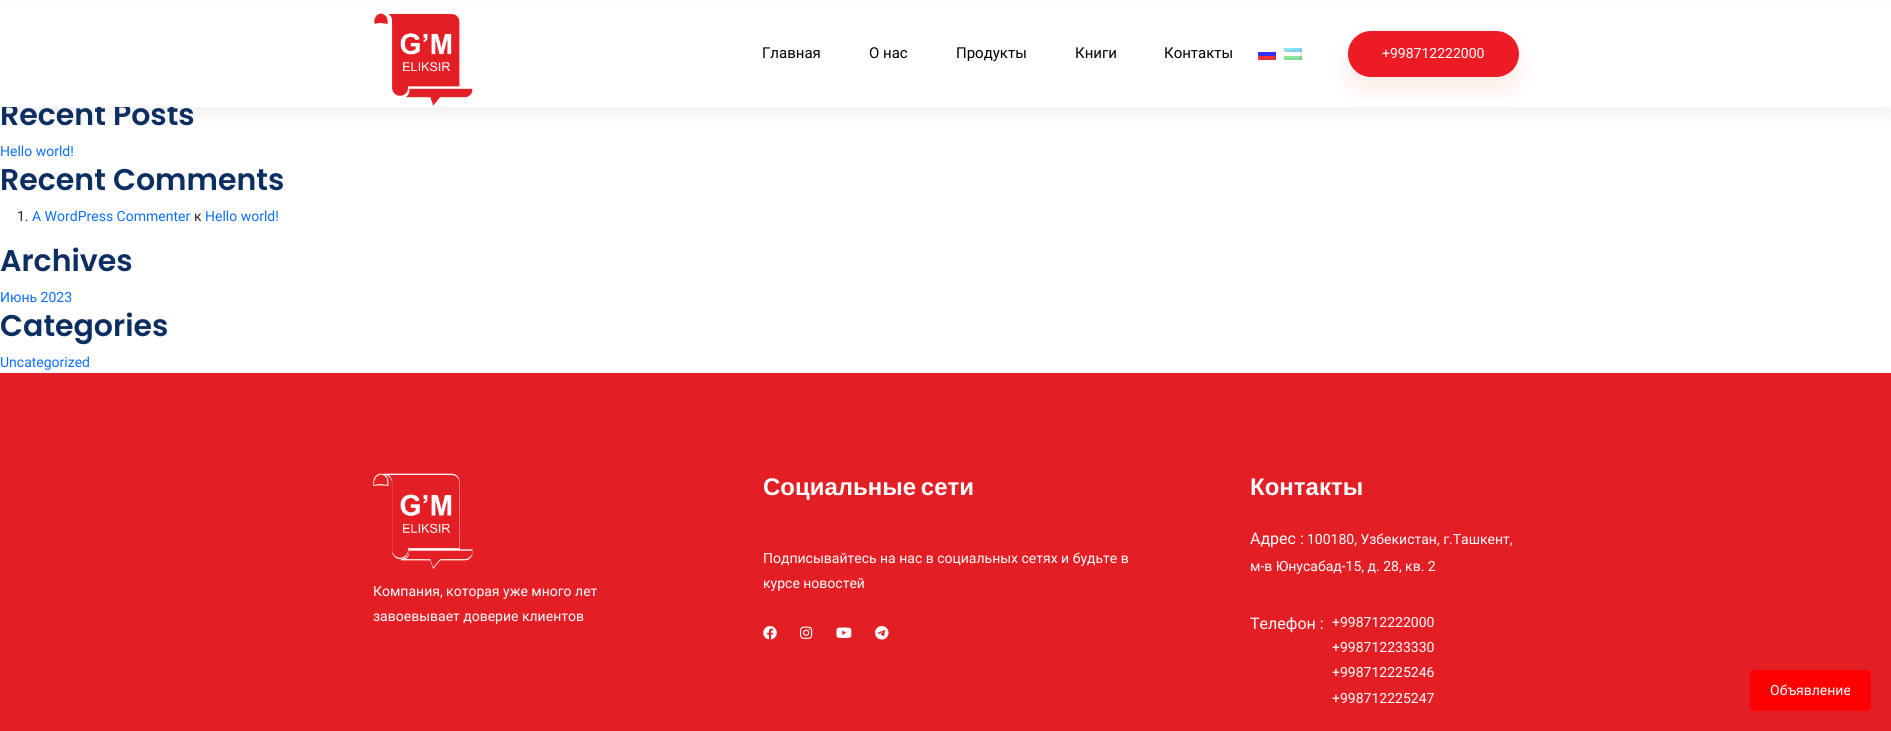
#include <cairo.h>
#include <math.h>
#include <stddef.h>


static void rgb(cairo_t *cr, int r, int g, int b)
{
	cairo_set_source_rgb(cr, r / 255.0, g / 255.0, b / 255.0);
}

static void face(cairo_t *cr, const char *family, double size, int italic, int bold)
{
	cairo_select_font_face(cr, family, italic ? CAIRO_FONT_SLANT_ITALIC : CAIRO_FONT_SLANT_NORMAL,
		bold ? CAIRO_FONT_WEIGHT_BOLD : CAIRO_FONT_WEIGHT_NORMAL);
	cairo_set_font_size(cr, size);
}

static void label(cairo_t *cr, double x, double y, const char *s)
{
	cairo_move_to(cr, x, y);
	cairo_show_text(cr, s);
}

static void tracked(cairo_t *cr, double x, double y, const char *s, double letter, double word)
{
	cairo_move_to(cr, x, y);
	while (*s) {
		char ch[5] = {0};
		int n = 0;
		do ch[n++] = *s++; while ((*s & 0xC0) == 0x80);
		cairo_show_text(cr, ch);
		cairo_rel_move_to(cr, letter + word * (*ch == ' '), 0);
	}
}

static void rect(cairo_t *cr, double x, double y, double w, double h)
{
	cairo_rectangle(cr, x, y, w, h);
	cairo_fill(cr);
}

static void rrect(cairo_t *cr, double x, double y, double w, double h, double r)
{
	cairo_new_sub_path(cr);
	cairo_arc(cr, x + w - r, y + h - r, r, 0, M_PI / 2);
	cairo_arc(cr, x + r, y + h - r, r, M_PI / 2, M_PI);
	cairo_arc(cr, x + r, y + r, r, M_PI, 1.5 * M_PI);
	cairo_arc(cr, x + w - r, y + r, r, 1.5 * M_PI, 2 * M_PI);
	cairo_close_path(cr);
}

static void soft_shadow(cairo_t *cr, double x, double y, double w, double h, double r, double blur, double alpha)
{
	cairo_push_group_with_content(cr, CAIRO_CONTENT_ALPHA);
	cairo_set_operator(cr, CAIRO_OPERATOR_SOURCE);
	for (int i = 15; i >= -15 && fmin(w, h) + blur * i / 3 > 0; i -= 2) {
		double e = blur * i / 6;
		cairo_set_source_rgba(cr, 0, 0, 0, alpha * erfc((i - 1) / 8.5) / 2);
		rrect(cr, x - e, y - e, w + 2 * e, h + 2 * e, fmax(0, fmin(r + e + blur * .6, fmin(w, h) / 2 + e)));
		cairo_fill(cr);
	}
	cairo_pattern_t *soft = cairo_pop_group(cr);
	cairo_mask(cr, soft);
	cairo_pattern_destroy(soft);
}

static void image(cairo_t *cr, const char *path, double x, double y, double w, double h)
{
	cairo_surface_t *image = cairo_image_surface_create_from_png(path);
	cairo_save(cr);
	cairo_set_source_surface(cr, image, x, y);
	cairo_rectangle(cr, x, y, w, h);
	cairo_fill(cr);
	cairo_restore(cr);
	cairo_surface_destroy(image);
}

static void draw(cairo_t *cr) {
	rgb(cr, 255, 255, 255);
	cairo_paint(cr);
	rgb(cr, 0, 0, 0);
	soft_shadow(cr, 0, 10, 1891, 107, 0, 7.5, 0.05);
	face(cr, "Poppins SemiBold", 30, 0, 0);
	rgb(cr, 12, 46, 96);
	label(cr, 0, 125, "Recent Posts");
	rgb(cr, 255, 255, 255);
	rect(cr, 0, 4, 1891, 103);
	image(cr, "image0.png", 374, 13, 99, 93);
	face(cr, "Roboto", 15, 0, 0);
	rgb(cr, 0, 0, 0);
	label(cr, 762, 58, "Главная");
	label(cr, 869, 58, "О нас");
	label(cr, 956, 58, "Продукты");
	label(cr, 1075, 58, "Книги");
	label(cr, 1164, 58, "Контакты");
	image(cr, "image1.png", 1258, 50, 18, 10);
	image(cr, "image2.png", 1284, 48, 18, 12);
	rgb(cr, 255, 126, 95);
	soft_shadow(cr, 1348, 43, 171, 46, 23, 10, 0.15);
	rgb(cr, 237, 27, 36);
	rrect(cr, 1348, 31, 171, 46, 23);
	cairo_fill(cr);
	face(cr, "Roboto", 14, 0, 0);
	rgb(cr, 255, 255, 255);
	label(cr, 1382, 58, "+998712222000");
	rgb(cr, 13, 110, 253);
	label(cr, 0, 156, "Hello world!");
	face(cr, "Poppins SemiBold", 30, 0, 0);
	rgb(cr, 12, 46, 96);
	label(cr, 0, 190, "Recent Comments");
	face(cr, "Roboto", 14, 0, 0);
	rgb(cr, 33, 37, 41);
	label(cr, 17, 221, "1.");
	rgb(cr, 13, 110, 253);
	label(cr, 32, 221, "A WordPress Commenter");
	rgb(cr, 33, 37, 41);
	label(cr, 194, 221, "к");
	rgb(cr, 13, 110, 253);
	label(cr, 205, 221, "Hello world!");
	face(cr, "Poppins SemiBold", 30, 0, 0);
	rgb(cr, 12, 46, 96);
	label(cr, 0, 271, "Archives");
	face(cr, "Roboto", 14, 0, 0);
	rgb(cr, 13, 110, 253);
	label(cr, 0, 302, "Июнь 2023");
	face(cr, "Poppins SemiBold", 30, 0, 0);
	rgb(cr, 12, 46, 96);
	label(cr, 0, 336, "Categories");
	face(cr, "Roboto", 14, 0, 0);
	rgb(cr, 13, 110, 253);
	label(cr, 0, 367, "Uncategorized");
	rgb(cr, 227, 30, 36);
	rect(cr, 0, 373, 1891, 358);
	image(cr, "image3.png", 373, 473, 100, 96);
	rgb(cr, 255, 255, 255);
	label(cr, 373, 596, "Компания, которая уже много лет");
	label(cr, 373, 621, "завоевывает доверие клиентов");
	face(cr, "Liberation Sans", 24, 0, 1);
	tracked(cr, 763, 495, "Социальные сети", 0, -2);
	face(cr, "Roboto", 14, 0, 0);
	label(cr, 763, 563, "Подписывайтесь на нас в социальных сетях и будьте в");
	label(cr, 763, 588, "курсе новостей");
	image(cr, "image4.png", 763, 626, 14, 14);
	image(cr, "image5.png", 800, 626, 13, 13);
	image(cr, "image6.png", 836, 627, 16, 11);
	image(cr, "image7.png", 875, 626, 14, 14);
	face(cr, "Liberation Sans", 24, 0, 1);
	label(cr, 1250, 495, "Контакты");
	face(cr, "Roboto", 16, 0, 0);
	label(cr, 1250, 544, "Адрес :");
	face(cr, "Roboto", 14, 0, 0);
	label(cr, 1307, 544, "100180, Узбекистан, г.Ташкент,");
	label(cr, 1250, 571, "м-в Юнусабад-15, д. 28, кв. 2");
	face(cr, "Roboto", 16, 0, 0);
	label(cr, 1250, 629, "Телефон :");
	face(cr, "Roboto", 14, 0, 0);
	label(cr, 1332, 627, "+998712222000");
	label(cr, 1332, 652, "+998712233330");
	label(cr, 1332, 677, "+998712225246");
	label(cr, 1332, 703, "+998712225247");
	rgb(cr, 255, 0, 0);
	rrect(cr, 1750, 670, 121, 41, 5);
	cairo_fill(cr);
	rgb(cr, 255, 255, 255);
	label(cr, 1770, 695, "Объявление");
}

int main(void) {
	cairo_surface_t *surface = cairo_image_surface_create(CAIRO_FORMAT_RGB24, 1891, 731);
	cairo_t *cr = cairo_create(surface);
	cairo_font_options_t *options = cairo_font_options_create();
	cairo_font_options_set_hint_metrics(options, CAIRO_HINT_METRICS_OFF);
	cairo_font_options_set_hint_style(options, CAIRO_HINT_STYLE_NONE);
	cairo_set_font_options(cr, options);
	cairo_set_miter_limit(cr, 4);
	draw(cr);
	cairo_surface_write_to_png(surface, "render.png");
	cairo_font_options_destroy(options);
	cairo_destroy(cr);
	cairo_surface_destroy(surface);
	return 0;
}
